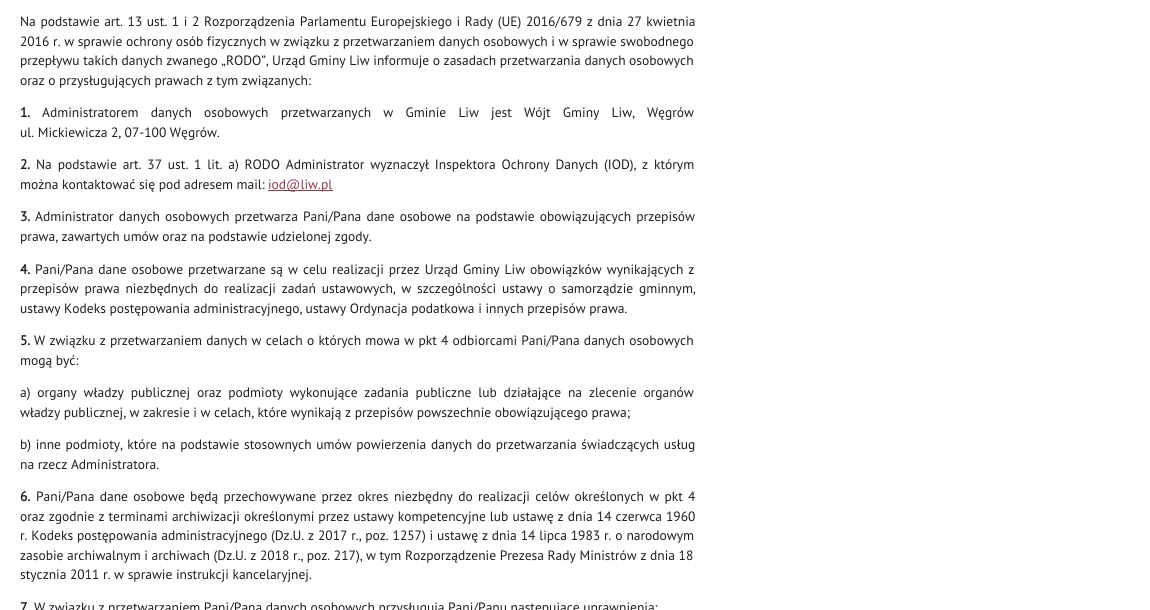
#include <cairo.h>
#include <math.h>
#include <stddef.h>


static void rgb(cairo_t *cr, int r, int g, int b)
{
	cairo_set_source_rgb(cr, r / 255.0, g / 255.0, b / 255.0);
}

static void face(cairo_t *cr, const char *family, double size, int italic, int bold)
{
	cairo_select_font_face(cr, family, italic ? CAIRO_FONT_SLANT_ITALIC : CAIRO_FONT_SLANT_NORMAL,
		bold ? CAIRO_FONT_WEIGHT_BOLD : CAIRO_FONT_WEIGHT_NORMAL);
	cairo_set_font_size(cr, size);
}

static void label(cairo_t *cr, double x, double y, const char *s)
{
	cairo_move_to(cr, x, y);
	cairo_show_text(cr, s);
}

static void tracked(cairo_t *cr, double x, double y, const char *s, double letter, double word)
{
	cairo_move_to(cr, x, y);
	while (*s) {
		char ch[5] = {0};
		int n = 0;
		do ch[n++] = *s++; while ((*s & 0xC0) == 0x80);
		cairo_show_text(cr, ch);
		cairo_rel_move_to(cr, letter + word * (*ch == ' '), 0);
	}
}

static void rect(cairo_t *cr, double x, double y, double w, double h)
{
	cairo_rectangle(cr, x, y, w, h);
	cairo_fill(cr);
}

static void draw(cairo_t *cr) {
	rgb(cr, 255, 255, 255);
	cairo_paint(cr);
	face(cr, "PT Sans", 13, 0, 0);
	rgb(cr, 29, 28, 36);
	tracked(cr, 20, 26, "Na podstawie art. 13 ust. 1 i 2 Rozporządzenia Parlamentu Europejskiego i Rady (UE) 2016/679 z dnia 27 kwietnia", 0, 1);
	label(cr, 20, 46, "2016 r. w sprawie ochrony osób fizycznych w związku z przetwarzaniem danych osobowych i w sprawie swobodnego");
	label(cr, 20, 65, "przepływu takich danych zwanego „RODO”, Urząd Gminy Liw informuje o zasadach przetwarzania danych osobowych");
	label(cr, 20, 85, "oraz o przysługujących prawach z tym związanych:");
	face(cr, "PT Sans", 13, 0, 1);
	label(cr, 20, 117, "1.");
	face(cr, "PT Sans", 13, 0, 0);
	tracked(cr, 42, 117, "Administratorem danych osobowych przetwarzanych w Gminie Liw jest Wójt Gminy Liw, Węgrów", 0, 8.6);
	label(cr, 20, 137, "ul. Mickiewicza 2, 07-100 Węgrów.");
	face(cr, "PT Sans", 13, 0, 1);
	label(cr, 20, 169, "2.");
	face(cr, "PT Sans", 13, 0, 0);
	tracked(cr, 36, 169, "Na podstawie art. 37 ust. 1 lit. a) RODO Administrator wyznaczył Inspektora Ochrony Danych (IOD), z którym", 0, 2.25);
	label(cr, 20, 189, "można kontaktować się pod adresem mail:");
	rgb(cr, 136, 60, 75);
	rect(cr, 268, 190, 65, 1);
	label(cr, 268, 189, "iod@liw.pl");
	face(cr, "PT Sans", 13, 0, 1);
	rgb(cr, 29, 28, 36);
	label(cr, 20, 221, "3.");
	face(cr, "PT Sans", 13, 0, 0);
	tracked(cr, 35, 221, "Administrator danych osobowych przetwarza Pani/Pana dane osobowe na podstawie obowiązujących przepisów", 0, 1.5);
	label(cr, 20, 241, "prawa, zawartych umów oraz na podstawie udzielonej zgody.");
	face(cr, "PT Sans", 13, 0, 1);
	label(cr, 20, 274, "4.");
	face(cr, "PT Sans", 13, 0, 0);
	tracked(cr, 35, 274, "Pani/Pana dane osobowe przetwarzane są w celu realizacji przez Urząd Gminy Liw obowiązków wynikających z", 0, 1.4);
	tracked(cr, 20, 293, "przepisów prawa niezbędnych do realizacji zadań ustawowych, w szczególności ustawy o samorządzie gminnym,", 0, 2.25);
	label(cr, 20, 313, "ustawy Kodeks postępowania administracyjnego, ustawy Ordynacja podatkowa i innych przepisów prawa.");
	face(cr, "PT Sans", 13, 0, 1);
	label(cr, 20, 345, "5.");
	face(cr, "PT Sans", 13, 0, 0);
	tracked(cr, 34, 345, "W związku z przetwarzaniem danych w celach o których mowa w pkt 4 odbiorcami Pani/Pana danych osobowych", 0, 0.6);
	label(cr, 20, 365, "mogą być:");
	tracked(cr, 20, 397, "a) organy władzy publicznej oraz podmioty wykonujące zadania publiczne lub działające na zlecenie organów", 0, 3.25);
	label(cr, 20, 417, "władzy publicznej, w zakresie i w celach, które wynikają z przepisów powszechnie obowiązującego prawa;");
	tracked(cr, 20, 449, "b) inne podmioty, które na podstawie stosownych umów powierzenia danych do przetwarzania świadczących usług", 0, 1);
	label(cr, 20, 469, "na rzecz Administratora.");
	face(cr, "PT Sans", 13, 0, 1);
	label(cr, 20, 501, "6.");
	face(cr, "PT Sans", 13, 0, 0);
	tracked(cr, 36, 501, "Pani/Pana dane osobowe będą przechowywane przez okres niezbędny do realizacji celów określonych w pkt 4", 0, 1.75);
	tracked(cr, 20, 521, "oraz zgodnie z terminami archiwizacji określonymi przez ustawy kompetencyjne lub ustawę z dnia 14 czerwca 1960", 0, 0.5);
	tracked(cr, 20, 540, "r. Kodeks postępowania administracyjnego (Dz.U. z 2017 r., poz. 1257) i ustawę z dnia 14 lipca 1983 r. o narodowym", 0, 0.25);
	label(cr, 20, 560, "zasobie archiwalnym i archiwach (Dz.U. z 2018 r., poz. 217), w tym Rozporządzenie Prezesa Rady Ministrów z dnia 18");
	label(cr, 20, 579, "stycznia 2011 r. w sprawie instrukcji kancelaryjnej.");
	face(cr, "PT Sans", 13, 0, 1);
	label(cr, 20, 612, "7");
	face(cr, "PT Sans", 13, 0, 0);
	label(cr, 34, 612, "W związku z przetwarzaniem Pani/Pana danych osobowych przysługują Pani/Panu następujące uprawnienia:");
}

int main(void) {
	cairo_surface_t *surface = cairo_image_surface_create(CAIRO_FORMAT_RGB24, 1150, 610);
	cairo_t *cr = cairo_create(surface);
	cairo_font_options_t *options = cairo_font_options_create();
	cairo_font_options_set_hint_metrics(options, CAIRO_HINT_METRICS_OFF);
	cairo_font_options_set_hint_style(options, CAIRO_HINT_STYLE_NONE);
	cairo_set_font_options(cr, options);
	cairo_set_miter_limit(cr, 4);
	draw(cr);
	cairo_surface_write_to_png(surface, "render.png");
	cairo_font_options_destroy(options);
	cairo_destroy(cr);
	cairo_surface_destroy(surface);
	return 0;
}
